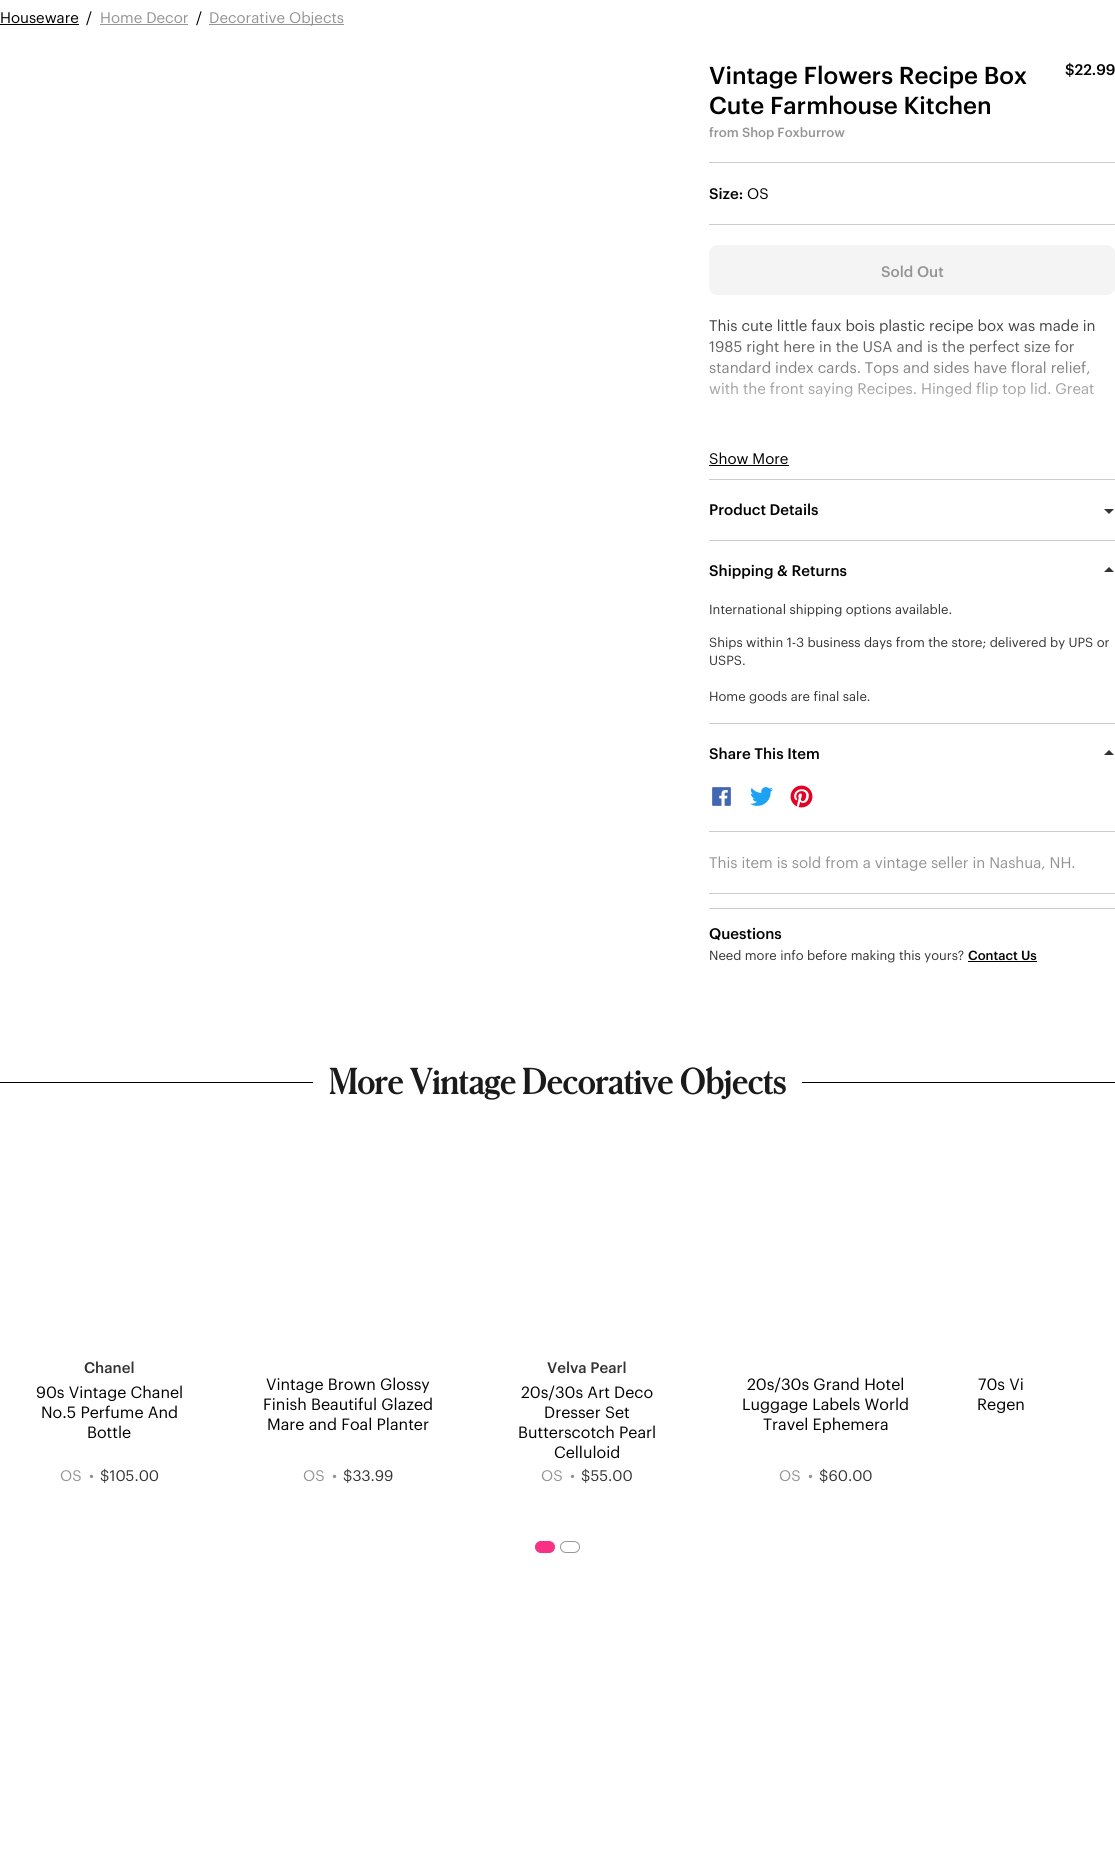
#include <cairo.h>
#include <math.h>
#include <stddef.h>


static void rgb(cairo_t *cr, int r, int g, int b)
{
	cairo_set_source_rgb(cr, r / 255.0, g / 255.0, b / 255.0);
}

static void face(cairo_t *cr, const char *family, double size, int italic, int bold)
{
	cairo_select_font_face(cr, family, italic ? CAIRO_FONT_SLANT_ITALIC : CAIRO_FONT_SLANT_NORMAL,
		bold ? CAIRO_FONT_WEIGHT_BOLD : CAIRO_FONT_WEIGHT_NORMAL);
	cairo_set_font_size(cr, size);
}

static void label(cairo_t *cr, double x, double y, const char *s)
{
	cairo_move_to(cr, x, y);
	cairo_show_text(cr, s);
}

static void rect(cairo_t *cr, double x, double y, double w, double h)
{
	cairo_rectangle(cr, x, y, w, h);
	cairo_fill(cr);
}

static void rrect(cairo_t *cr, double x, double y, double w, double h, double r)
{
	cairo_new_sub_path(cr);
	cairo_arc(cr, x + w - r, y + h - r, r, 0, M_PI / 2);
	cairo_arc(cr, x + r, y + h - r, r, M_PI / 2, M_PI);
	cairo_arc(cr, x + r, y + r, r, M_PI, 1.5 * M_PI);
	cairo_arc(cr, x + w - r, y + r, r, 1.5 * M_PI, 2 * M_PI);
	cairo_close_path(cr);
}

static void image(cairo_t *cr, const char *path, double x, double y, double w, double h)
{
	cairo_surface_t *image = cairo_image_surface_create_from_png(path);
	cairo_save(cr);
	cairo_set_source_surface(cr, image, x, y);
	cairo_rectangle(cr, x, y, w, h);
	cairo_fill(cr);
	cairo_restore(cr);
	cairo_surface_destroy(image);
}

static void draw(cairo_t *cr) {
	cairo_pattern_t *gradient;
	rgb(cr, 255, 255, 255);
	cairo_paint(cr);
	face(cr, "Graphik", 15, 0, 0);
	rgb(cr, 0, 0, 0);
	label(cr, 0, 23, "Houseware");
	rect(cr, 0, 24, 79, 1);
	label(cr, 86, 23, "/");
	rgb(cr, 148, 148, 147);
	label(cr, 100, 23, "Home Decor");
	rect(cr, 100, 24, 88, 1);
	rgb(cr, 0, 0, 0);
	label(cr, 196, 23, "/");
	rgb(cr, 148, 148, 147);
	rect(cr, 209, 24, 135, 1);
	label(cr, 209, 23, "Decorative Objects");
	face(cr, "Graphik Medium", 24, 0, 0);
	rgb(cr, 0, 0, 0);
	label(cr, 709, 84, "Vintage Flowers Recipe Box");
	label(cr, 709, 114, "Cute Farmhouse Kitchen");
	face(cr, "Graphik Medium", 15, 0, 0);
	label(cr, 1065, 75, "$22.99");
	face(cr, "Graphik Medium", 13, 0, 0);
	rgb(cr, 148, 148, 147);
	label(cr, 709, 137, "from Shop Foxburrow");
	rgb(cr, 203, 203, 203);
	rect(cr, 709, 162, 406, 1);
	rect(cr, 709, 224, 406, 1);
	face(cr, "Graphik Medium", 15, 0, 0);
	rgb(cr, 0, 0, 0);
	label(cr, 709, 199, "Size:");
	face(cr, "Graphik", 15, 0, 0);
	label(cr, 747, 199, "OS");
	rgb(cr, 244, 244, 244);
	rrect(cr, 709, 245, 406, 50, 8);
	cairo_fill(cr);
	face(cr, "Graphik Medium", 15, 0, 0);
	rgb(cr, 148, 148, 147);
	label(cr, 881, 277, "Sold Out");
	face(cr, "Graphik", 15, 0, 0);
	rgb(cr, 51, 51, 51);
	label(cr, 709, 331, "This cute little faux bois plastic recipe box was made in");
	label(cr, 709, 352, "1985 right here in the USA and is the perfect size for");
	label(cr, 709, 373, "standard index cards. Tops and sides have floral relief,");
	label(cr, 709, 394, "with the front saying Recipes. Hinged flip top lid. Great");
	gradient = cairo_pattern_create_linear(912, 315, 912, 451);
	cairo_pattern_add_color_stop_rgba(gradient, 0, 1, 1, 1, 0);
	cairo_pattern_add_color_stop_rgba(gradient, 1, 1, 1, 1, 1);
	cairo_set_source(cr, gradient);
	cairo_pattern_destroy(gradient);
	rect(cr, 709, 319, 386, 78);
	rgb(cr, 0, 0, 0);
	label(cr, 709, 464, "Show More");
	rect(cr, 709, 465, 80, 1);
	rgb(cr, 203, 203, 203);
	rect(cr, 709, 479, 406, 1);
	face(cr, "Graphik Medium", 15, 0, 0);
	rgb(cr, 0, 0, 0);
	label(cr, 709, 515, "Product Details");
	rgb(cr, 51, 51, 51);
	cairo_set_fill_rule(cr, CAIRO_FILL_RULE_EVEN_ODD);
	cairo_new_path(cr);
	cairo_move_to(cr, 1114, 509);
	cairo_line_to(cr, 1109, 514);
	cairo_line_to(cr, 1104, 509);
	cairo_close_path(cr);
	cairo_fill(cr);
	rgb(cr, 203, 203, 203);
	rect(cr, 709, 540, 406, 1);
	rgb(cr, 0, 0, 0);
	label(cr, 709, 576, "Shipping & Returns");
	rgb(cr, 51, 51, 51);
	cairo_new_path(cr);
	cairo_move_to(cr, 1104, 572);
	cairo_line_to(cr, 1109, 567);
	cairo_line_to(cr, 1114, 572);
	cairo_close_path(cr);
	cairo_fill(cr);
	face(cr, "Graphik", 13, 0, 0);
	label(cr, 709, 614, "International shipping options available.");
	label(cr, 709, 647, "Ships within 1-3 business days from the store; delivered by UPS or");
	label(cr, 709, 665, "USPS.");
	label(cr, 709, 701, "Home goods are final sale.");
	rgb(cr, 203, 203, 203);
	rect(cr, 709, 723, 406, 1);
	face(cr, "Graphik Medium", 15, 0, 0);
	rgb(cr, 0, 0, 0);
	label(cr, 709, 759, "Share This Item");
	rgb(cr, 51, 51, 51);
	cairo_new_path(cr);
	cairo_move_to(cr, 1104, 755);
	cairo_line_to(cr, 1109, 750);
	cairo_line_to(cr, 1114, 755);
	cairo_close_path(cr);
	cairo_fill(cr);
	image(cr, "image0.png", 712, 787, 19, 19);
	image(cr, "image1.png", 750, 787, 23, 19);
	image(cr, "image2.png", 790, 785, 23, 23);
	rgb(cr, 203, 203, 203);
	rect(cr, 709, 831, 406, 1);
	face(cr, "Graphik", 15, 0, 0);
	rgb(cr, 148, 148, 147);
	label(cr, 709, 868, "This item is sold from a vintage seller in Nashua, NH.");
	rgb(cr, 203, 203, 203);
	rect(cr, 709, 893, 406, 1);
	rect(cr, 709, 908, 406, 1);
	face(cr, "Graphik Medium", 15, 0, 0);
	rgb(cr, 0, 0, 0);
	label(cr, 709, 939, "Questions");
	face(cr, "Graphik", 13, 0, 0);
	rgb(cr, 51, 51, 51);
	label(cr, 709, 960, "Need more info before making this yours?");
	face(cr, "Graphik Medium", 13, 0, 0);
	rgb(cr, 0, 0, 0);
	label(cr, 968, 960, "Contact Us");
	rect(cr, 968, 961, 69, 1);
	rect(cr, 0, 1082, 1115, 1);
	rgb(cr, 255, 255, 255);
	rect(cr, 313, 1082, 489, 1);
	face(cr, "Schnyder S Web", 33.7, 0, 1);
	rgb(cr, 26, 26, 26);
	label(cr, 329, 1094, "More Vintage Decorative Objects");
	face(cr, "Graphik Medium", 15, 0, 0);
	rgb(cr, 51, 51, 51);
	label(cr, 84, 1373, "Chanel");
	face(cr, "Graphik", 16, 0, 0);
	rgb(cr, 0, 0, 0);
	label(cr, 36, 1398, "90s Vintage Chanel");
	label(cr, 41, 1418, "No.5 Perfume And");
	label(cr, 87, 1438, "Bottle");
	face(cr, "Graphik", 15, 0, 0);
	rgb(cr, 148, 148, 147);
	label(cr, 60, 1481, "OS");
	label(cr, 89, 1481, "•");
	rgb(cr, 51, 51, 51);
	label(cr, 100, 1481, "$105.00");
	face(cr, "Graphik", 16, 0, 0);
	rgb(cr, 0, 0, 0);
	label(cr, 266, 1390, "Vintage Brown Glossy");
	label(cr, 263, 1410, "Finish Beautiful Glazed");
	label(cr, 267, 1430, "Mare and Foal Planter");
	face(cr, "Graphik", 15, 0, 0);
	rgb(cr, 148, 148, 147);
	label(cr, 303, 1481, "OS");
	label(cr, 332, 1481, "•");
	rgb(cr, 51, 51, 51);
	label(cr, 343, 1481, "$33.99");
	face(cr, "Graphik Medium", 15, 0, 0);
	label(cr, 547, 1373, "Velva Pearl");
	face(cr, "Graphik", 16, 0, 0);
	rgb(cr, 0, 0, 0);
	label(cr, 521, 1398, "20s/30s Art Deco");
	label(cr, 544, 1418, "Dresser Set");
	label(cr, 518, 1438, "Butterscotch Pearl");
	label(cr, 554, 1458, "Celluloid");
	face(cr, "Graphik", 15, 0, 0);
	rgb(cr, 148, 148, 147);
	label(cr, 541, 1481, "OS");
	label(cr, 570, 1481, "•");
	rgb(cr, 51, 51, 51);
	label(cr, 581, 1481, "$55.00");
	face(cr, "Graphik", 16, 0, 0);
	rgb(cr, 0, 0, 0);
	label(cr, 747, 1390, "20s/30s Grand Hotel");
	label(cr, 742, 1410, "Luggage Labels World");
	label(cr, 763, 1430, "Travel Ephemera");
	face(cr, "Graphik", 15, 0, 0);
	rgb(cr, 148, 148, 147);
	label(cr, 779, 1481, "OS");
	label(cr, 808, 1481, "•");
	rgb(cr, 51, 51, 51);
	label(cr, 819, 1481, "$60.00");
	face(cr, "Graphik", 16, 0, 0);
	rgb(cr, 0, 0, 0);
	label(cr, 978, 1390, "70s Vi");
	label(cr, 977, 1410, "Regen");
	rgb(cr, 247, 50, 132);
	rrect(cr, 535.5, 1541.5, 19, 11, 5.5);
	cairo_fill_preserve(cr);
	cairo_set_line_width(cr, 1);
	cairo_stroke(cr);
	rrect(cr, 560.5, 1541.5, 19, 11, 5.5);
	rgb(cr, 151, 151, 151);
	cairo_stroke(cr);
}

int main(void) {
	cairo_surface_t *surface = cairo_image_surface_create(CAIRO_FORMAT_RGB24, 1115, 1874);
	cairo_t *cr = cairo_create(surface);
	cairo_font_options_t *options = cairo_font_options_create();
	cairo_font_options_set_hint_metrics(options, CAIRO_HINT_METRICS_OFF);
	cairo_font_options_set_hint_style(options, CAIRO_HINT_STYLE_NONE);
	cairo_set_font_options(cr, options);
	cairo_set_miter_limit(cr, 4);
	draw(cr);
	cairo_surface_write_to_png(surface, "render.png");
	cairo_font_options_destroy(options);
	cairo_destroy(cr);
	cairo_surface_destroy(surface);
	return 0;
}
